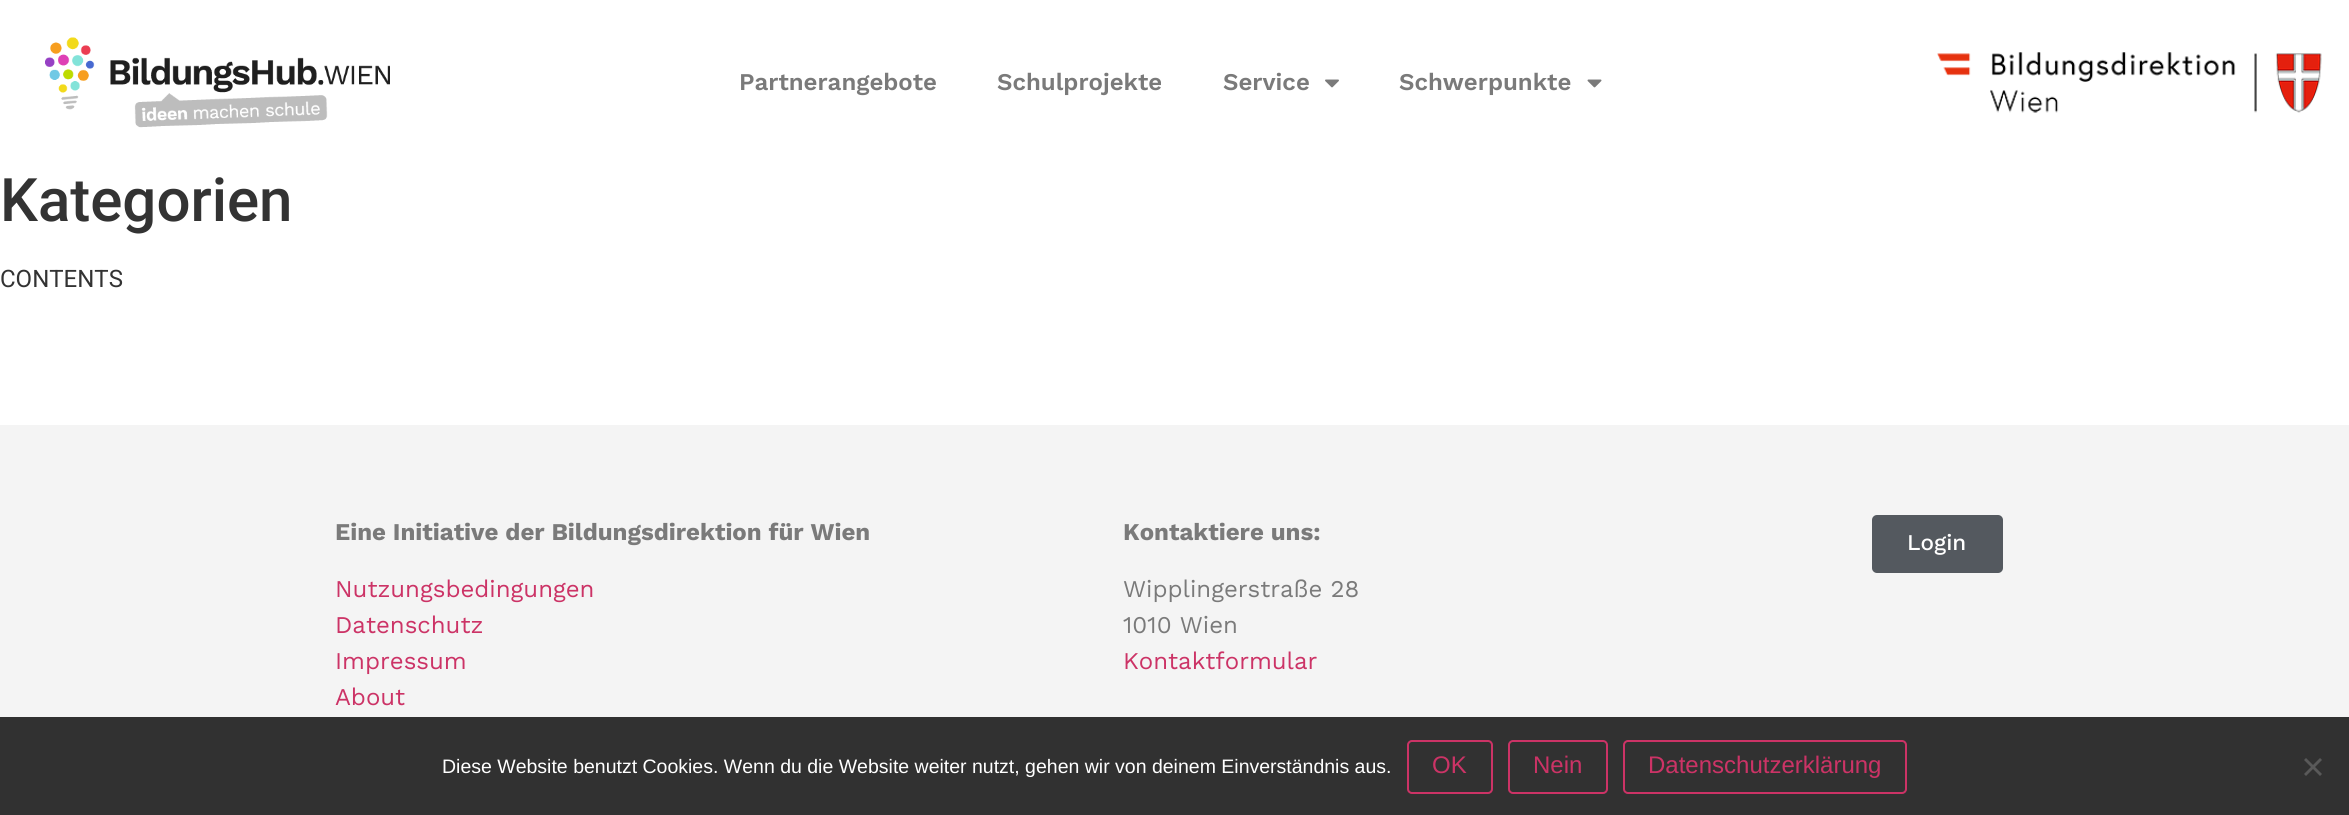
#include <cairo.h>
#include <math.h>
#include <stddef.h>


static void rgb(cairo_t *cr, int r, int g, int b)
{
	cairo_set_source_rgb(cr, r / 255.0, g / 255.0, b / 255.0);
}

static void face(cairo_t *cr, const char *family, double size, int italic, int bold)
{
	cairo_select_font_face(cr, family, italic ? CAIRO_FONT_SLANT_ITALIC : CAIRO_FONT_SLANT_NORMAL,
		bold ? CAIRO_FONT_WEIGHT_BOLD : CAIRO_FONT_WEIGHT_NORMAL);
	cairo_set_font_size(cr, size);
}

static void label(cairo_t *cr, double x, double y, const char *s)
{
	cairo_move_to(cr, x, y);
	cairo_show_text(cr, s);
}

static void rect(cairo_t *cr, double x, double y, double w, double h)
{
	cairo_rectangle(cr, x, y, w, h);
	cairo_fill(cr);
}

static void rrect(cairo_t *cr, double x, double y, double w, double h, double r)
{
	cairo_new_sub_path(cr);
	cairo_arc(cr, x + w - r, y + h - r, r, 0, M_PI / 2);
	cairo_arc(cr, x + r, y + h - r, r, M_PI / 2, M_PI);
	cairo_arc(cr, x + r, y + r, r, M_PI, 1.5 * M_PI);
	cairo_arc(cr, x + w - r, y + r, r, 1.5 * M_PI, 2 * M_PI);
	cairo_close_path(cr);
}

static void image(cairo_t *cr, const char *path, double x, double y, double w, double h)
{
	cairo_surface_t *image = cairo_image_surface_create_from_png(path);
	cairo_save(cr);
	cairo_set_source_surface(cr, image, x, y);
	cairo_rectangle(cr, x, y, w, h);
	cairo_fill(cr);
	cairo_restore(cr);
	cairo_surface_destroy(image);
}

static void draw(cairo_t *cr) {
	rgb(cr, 255, 255, 255);
	cairo_paint(cr);
	image(cr, "image0.png", 45, 37, 345, 91);
	face(cr, "Work Sans SemiBold", 24, 0, 0);
	rgb(cr, 122, 122, 122);
	label(cr, 739, 90, "Partnerangebote");
	label(cr, 997, 90, "Schulprojekte");
	label(cr, 1223, 90, "Service");
	image(cr, "image1.png", 1325, 79, 14, 9);
	label(cr, 1399, 90, "Schwerpunkte");
	image(cr, "image2.png", 1587, 79, 15, 9);
	image(cr, "image3.png", 1937, 52, 385, 61);
	face(cr, "Roboto Medium", 60, 0, 0);
	rgb(cr, 51, 51, 51);
	label(cr, 0, 221, "Kategorien");
	face(cr, "Roboto", 24, 0, 0);
	label(cr, 0, 287, "CONTENTS");
	rgb(cr, 244, 244, 244);
	rect(cr, 0, 425, 2349, 292);
	face(cr, "Work Sans", 24, 0, 1);
	rgb(cr, 122, 122, 122);
	label(cr, 335, 540, "Eine Initiative der Bildungsdirektion für Wien");
	face(cr, "Work Sans", 24, 0, 0);
	rgb(cr, 204, 51, 102);
	label(cr, 335, 597, "Nutzungsbedingungen");
	label(cr, 335, 633, "Datenschutz");
	label(cr, 335, 669, "Impressum");
	label(cr, 335, 705, "About");
	face(cr, "Work Sans", 24, 0, 1);
	rgb(cr, 122, 122, 122);
	label(cr, 1123, 540, "Kontaktiere uns:");
	face(cr, "Work Sans", 24, 0, 0);
	label(cr, 1123, 597, "Wipplingerstraße 28");
	label(cr, 1123, 633, "1010 Wien");
	rgb(cr, 204, 51, 102);
	label(cr, 1123, 669, "Kontaktformular");
	rgb(cr, 84, 89, 95);
	rrect(cr, 1872, 515, 131, 58, 5);
	cairo_fill(cr);
	face(cr, "Work Sans Medium", 22.5, 0, 0);
	rgb(cr, 255, 255, 255);
	label(cr, 1907, 550, "Login");
	rgb(cr, 49, 49, 49);
	rect(cr, 0, 717, 2349, 98);
	face(cr, "Liberation Sans", 19.5, 0, 0);
	rgb(cr, 255, 255, 255);
	label(cr, 442, 773, "Diese Website benutzt Cookies. Wenn du die Website weiter nutzt, gehen wir von deinem Einverständnis aus.");
	rrect(cr, 1408, 741, 84, 52, 4);
	rgb(cr, 204, 51, 102);
	cairo_stroke(cr);
	face(cr, "Liberation Sans", 24, 0, 0);
	label(cr, 1432, 773, "OK");
	rrect(cr, 1509, 741, 98, 52, 4);
	cairo_stroke(cr);
	label(cr, 1533, 773, "Nein");
	rrect(cr, 1624, 741, 282, 52, 4);
	cairo_stroke(cr);
	label(cr, 1648, 773, "Datenschutzerklärung");
	rgb(cr, 89, 89, 89);
	cairo_new_path(cr);
	cairo_move_to(cr, 2320, 758);
	cairo_line_to(cr, 2322, 760);
	cairo_line_to(cr, 2306, 776);
	cairo_line_to(cr, 2304, 774);
	cairo_close_path(cr);
	cairo_fill(cr);
	cairo_new_path(cr);
	cairo_move_to(cr, 2304, 760);
	cairo_line_to(cr, 2306, 758);
	cairo_line_to(cr, 2322, 774);
	cairo_line_to(cr, 2320, 776);
	cairo_close_path(cr);
	cairo_fill(cr);
}

int main(void) {
	cairo_surface_t *surface = cairo_image_surface_create(CAIRO_FORMAT_RGB24, 2349, 815);
	cairo_t *cr = cairo_create(surface);
	cairo_font_options_t *options = cairo_font_options_create();
	cairo_font_options_set_hint_metrics(options, CAIRO_HINT_METRICS_OFF);
	cairo_font_options_set_hint_style(options, CAIRO_HINT_STYLE_NONE);
	cairo_set_font_options(cr, options);
	cairo_set_miter_limit(cr, 4);
	draw(cr);
	cairo_surface_write_to_png(surface, "render.png");
	cairo_font_options_destroy(options);
	cairo_destroy(cr);
	cairo_surface_destroy(surface);
	return 0;
}
